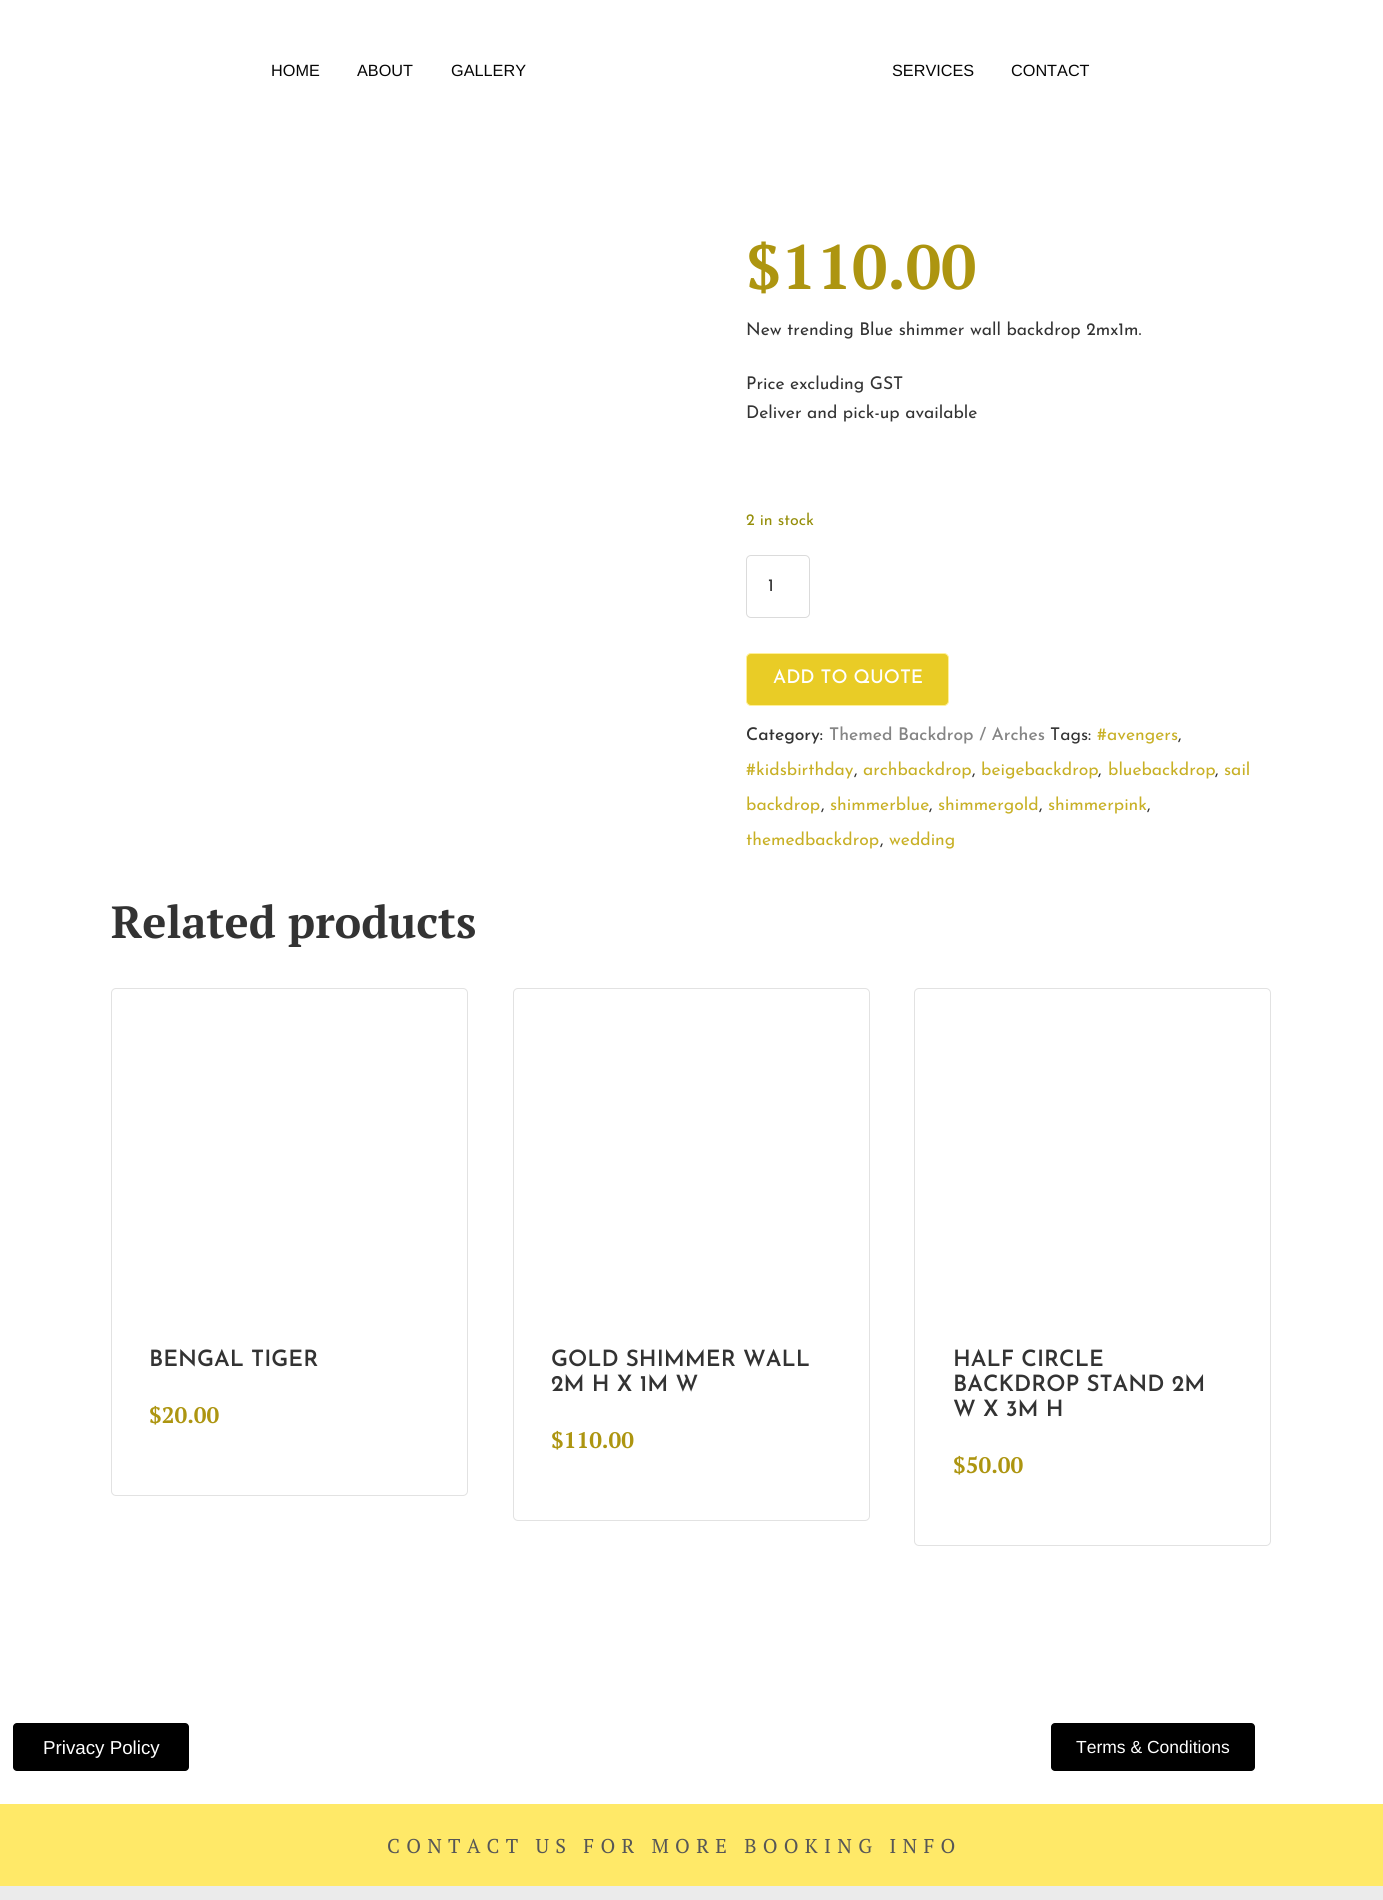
#include <cairo.h>
#include <math.h>
#include <stddef.h>


static void rgb(cairo_t *cr, int r, int g, int b)
{
	cairo_set_source_rgb(cr, r / 255.0, g / 255.0, b / 255.0);
}

static void face(cairo_t *cr, const char *family, double size, int italic, int bold)
{
	cairo_select_font_face(cr, family, italic ? CAIRO_FONT_SLANT_ITALIC : CAIRO_FONT_SLANT_NORMAL,
		bold ? CAIRO_FONT_WEIGHT_BOLD : CAIRO_FONT_WEIGHT_NORMAL);
	cairo_set_font_size(cr, size);
}

static void label(cairo_t *cr, double x, double y, const char *s)
{
	cairo_move_to(cr, x, y);
	cairo_show_text(cr, s);
}

static void tracked(cairo_t *cr, double x, double y, const char *s, double letter, double word)
{
	cairo_move_to(cr, x, y);
	while (*s) {
		char ch[5] = {0};
		int n = 0;
		do ch[n++] = *s++; while ((*s & 0xC0) == 0x80);
		cairo_show_text(cr, ch);
		cairo_rel_move_to(cr, letter + word * (*ch == ' '), 0);
	}
}

static void rect(cairo_t *cr, double x, double y, double w, double h)
{
	cairo_rectangle(cr, x, y, w, h);
	cairo_fill(cr);
}

static void rrect(cairo_t *cr, double x, double y, double w, double h, double r)
{
	cairo_new_sub_path(cr);
	cairo_arc(cr, x + w - r, y + h - r, r, 0, M_PI / 2);
	cairo_arc(cr, x + r, y + h - r, r, M_PI / 2, M_PI);
	cairo_arc(cr, x + r, y + r, r, M_PI, 1.5 * M_PI);
	cairo_arc(cr, x + w - r, y + r, r, 1.5 * M_PI, 2 * M_PI);
	cairo_close_path(cr);
}

static void draw(cairo_t *cr) {
	rgb(cr, 255, 255, 255);
	cairo_paint(cr);
	face(cr, "Liberation Sans", 16.25, 0, 0);
	rgb(cr, 5, 5, 5);
	label(cr, 271, 76, "HOME");
	label(cr, 357, 76, "ABOUT");
	label(cr, 451, 76, "GALLERY");
	label(cr, 892, 76, "SERVICES");
	label(cr, 1011, 76, "CONTACT");
	face(cr, "PT Serif", 62.5, 0, 1);
	rgb(cr, 173, 149, 16);
	label(cr, 746, 289, "$110.00");
	face(cr, "Josefin Sans", 17.5, 0, 0);
	rgb(cr, 51, 51, 51);
	label(cr, 746, 335, "New trending Blue shimmer wall backdrop 2mx1m.");
	label(cr, 746, 389, "Price excluding GST");
	label(cr, 746, 418, "Deliver and pick-up available");
	face(cr, "Josefin Sans", 16, 0, 0);
	rgb(cr, 149, 142, 9);
	label(cr, 746, 525, "2 in stock");
	rrect(cr, 746.5, 555.5, 63, 62, 4.5);
	rgb(cr, 219, 219, 219);
	cairo_set_line_width(cr, 1);
	cairo_stroke(cr);
	face(cr, "Josefin Sans", 17.5, 0, 0);
	rgb(cr, 51, 51, 51);
	label(cr, 768, 591, "1");
	rgb(cr, 233, 204, 38);
	rrect(cr, 746.5, 653.5, 202, 52, 4.5);
	cairo_fill_preserve(cr);
	rgb(cr, 255, 240, 151);
	cairo_stroke(cr);
	face(cr, "Josefin Sans Medium", 18.75, 0, 0);
	rgb(cr, 255, 255, 255);
	label(cr, 773, 683, "ADD TO QUOTE");
	face(cr, "Josefin Sans Medium", 17.5, 0, 0);
	rgb(cr, 51, 51, 51);
	label(cr, 746, 740, "Category:");
	rgb(cr, 133, 133, 133);
	label(cr, 829, 740, "Themed Backdrop / Arches");
	face(cr, "Josefin Sans", 17.5, 0, 0);
	rgb(cr, 51, 51, 51);
	label(cr, 1050, 740, "Tags:");
	rgb(cr, 200, 176, 37);
	label(cr, 1097, 740, "#avengers");
	rgb(cr, 51, 51, 51);
	label(cr, 1178, 740, ",");
	rgb(cr, 200, 176, 37);
	label(cr, 746, 775, "#kidsbirthday");
	rgb(cr, 51, 51, 51);
	label(cr, 854, 775, ",");
	rgb(cr, 200, 176, 37);
	label(cr, 863, 775, "archbackdrop");
	rgb(cr, 51, 51, 51);
	label(cr, 972, 775, ",");
	rgb(cr, 200, 176, 37);
	label(cr, 981, 775, "beigebackdrop");
	rgb(cr, 51, 51, 51);
	label(cr, 1098, 775, ",");
	rgb(cr, 200, 176, 37);
	label(cr, 1108, 775, "bluebackdrop");
	rgb(cr, 51, 51, 51);
	label(cr, 1215, 775, ",");
	rgb(cr, 200, 176, 37);
	label(cr, 1224, 775, "sail");
	label(cr, 746, 810, "backdrop");
	rgb(cr, 51, 51, 51);
	label(cr, 821, 810, ",");
	rgb(cr, 200, 176, 37);
	label(cr, 830, 810, "shimmerblue");
	rgb(cr, 51, 51, 51);
	label(cr, 929, 810, ",");
	rgb(cr, 200, 176, 37);
	label(cr, 938, 810, "shimmergold");
	rgb(cr, 51, 51, 51);
	label(cr, 1039, 810, ",");
	rgb(cr, 200, 176, 37);
	label(cr, 1048, 810, "shimmerpink");
	rgb(cr, 51, 51, 51);
	label(cr, 1147, 810, ",");
	rgb(cr, 200, 176, 37);
	label(cr, 746, 845, "themedbackdrop");
	rgb(cr, 51, 51, 51);
	label(cr, 880, 845, ",");
	rgb(cr, 200, 176, 37);
	label(cr, 889, 845, "wedding");
	face(cr, "PT Serif", 45, 0, 1);
	rgb(cr, 51, 51, 51);
	label(cr, 111, 938, "Related products");
	rrect(cr, 111.5, 988.5, 356, 507, 4.5);
	rgb(cr, 226, 226, 226);
	cairo_stroke(cr);
	face(cr, "Josefin Sans SemiBold", 22.5, 0, 0);
	rgb(cr, 51, 51, 51);
	label(cr, 149, 1366, "BENGAL TIGER");
	face(cr, "PT Serif", 22.5, 0, 1);
	rgb(cr, 173, 149, 16);
	label(cr, 149, 1423, "$20.00");
	rrect(cr, 513.5, 988.5, 356, 532, 4.5);
	rgb(cr, 226, 226, 226);
	cairo_stroke(cr);
	face(cr, "Josefin Sans SemiBold", 22.5, 0, 0);
	rgb(cr, 51, 51, 51);
	label(cr, 551, 1366, "GOLD SHIMMER WALL");
	label(cr, 551, 1391, "2M H X 1M W");
	face(cr, "PT Serif", 22.5, 0, 1);
	rgb(cr, 173, 149, 16);
	label(cr, 551, 1448, "$110.00");
	rrect(cr, 914.5, 988.5, 356, 557, 4.5);
	rgb(cr, 226, 226, 226);
	cairo_stroke(cr);
	face(cr, "Josefin Sans SemiBold", 22.5, 0, 0);
	rgb(cr, 51, 51, 51);
	label(cr, 953, 1366, "HALF CIRCLE");
	label(cr, 953, 1391, "BACKDROP STAND 2M");
	label(cr, 953, 1416, "W X 3M H");
	face(cr, "PT Serif", 22.5, 0, 1);
	rgb(cr, 173, 149, 16);
	label(cr, 953, 1473, "$50.00");
	rgb(cr, 0, 0, 0);
	rrect(cr, 13, 1723, 176, 48, 4);
	cairo_fill(cr);
	face(cr, "Liberation Sans", 18.75, 0, 0);
	rgb(cr, 255, 255, 255);
	label(cr, 43, 1754, "Privacy Policy");
	rgb(cr, 0, 0, 0);
	rrect(cr, 1051, 1723, 204, 48, 4);
	cairo_fill(cr);
	face(cr, "Liberation Sans", 17.5, 0, 0);
	rgb(cr, 255, 255, 255);
	label(cr, 1076, 1753, "Terms & Conditions");
	rgb(cr, 255, 233, 104);
	rect(cr, 0, 1804, 1383, 82);
	face(cr, "PT Serif", 20, 0, 0);
	rgb(cr, 86, 86, 86);
	tracked(cr, 387, 1853, "CONTACT US FOR MORE BOOKING INFO", 6.25, 0);
	rgb(cr, 235, 235, 235);
	rect(cr, 0, 1886, 1383, 14);
}

int main(void) {
	cairo_surface_t *surface = cairo_image_surface_create(CAIRO_FORMAT_RGB24, 1383, 1900);
	cairo_t *cr = cairo_create(surface);
	cairo_font_options_t *options = cairo_font_options_create();
	cairo_font_options_set_hint_metrics(options, CAIRO_HINT_METRICS_OFF);
	cairo_font_options_set_hint_style(options, CAIRO_HINT_STYLE_NONE);
	cairo_set_font_options(cr, options);
	cairo_set_miter_limit(cr, 4);
	draw(cr);
	cairo_surface_write_to_png(surface, "render.png");
	cairo_font_options_destroy(options);
	cairo_destroy(cr);
	cairo_surface_destroy(surface);
	return 0;
}
